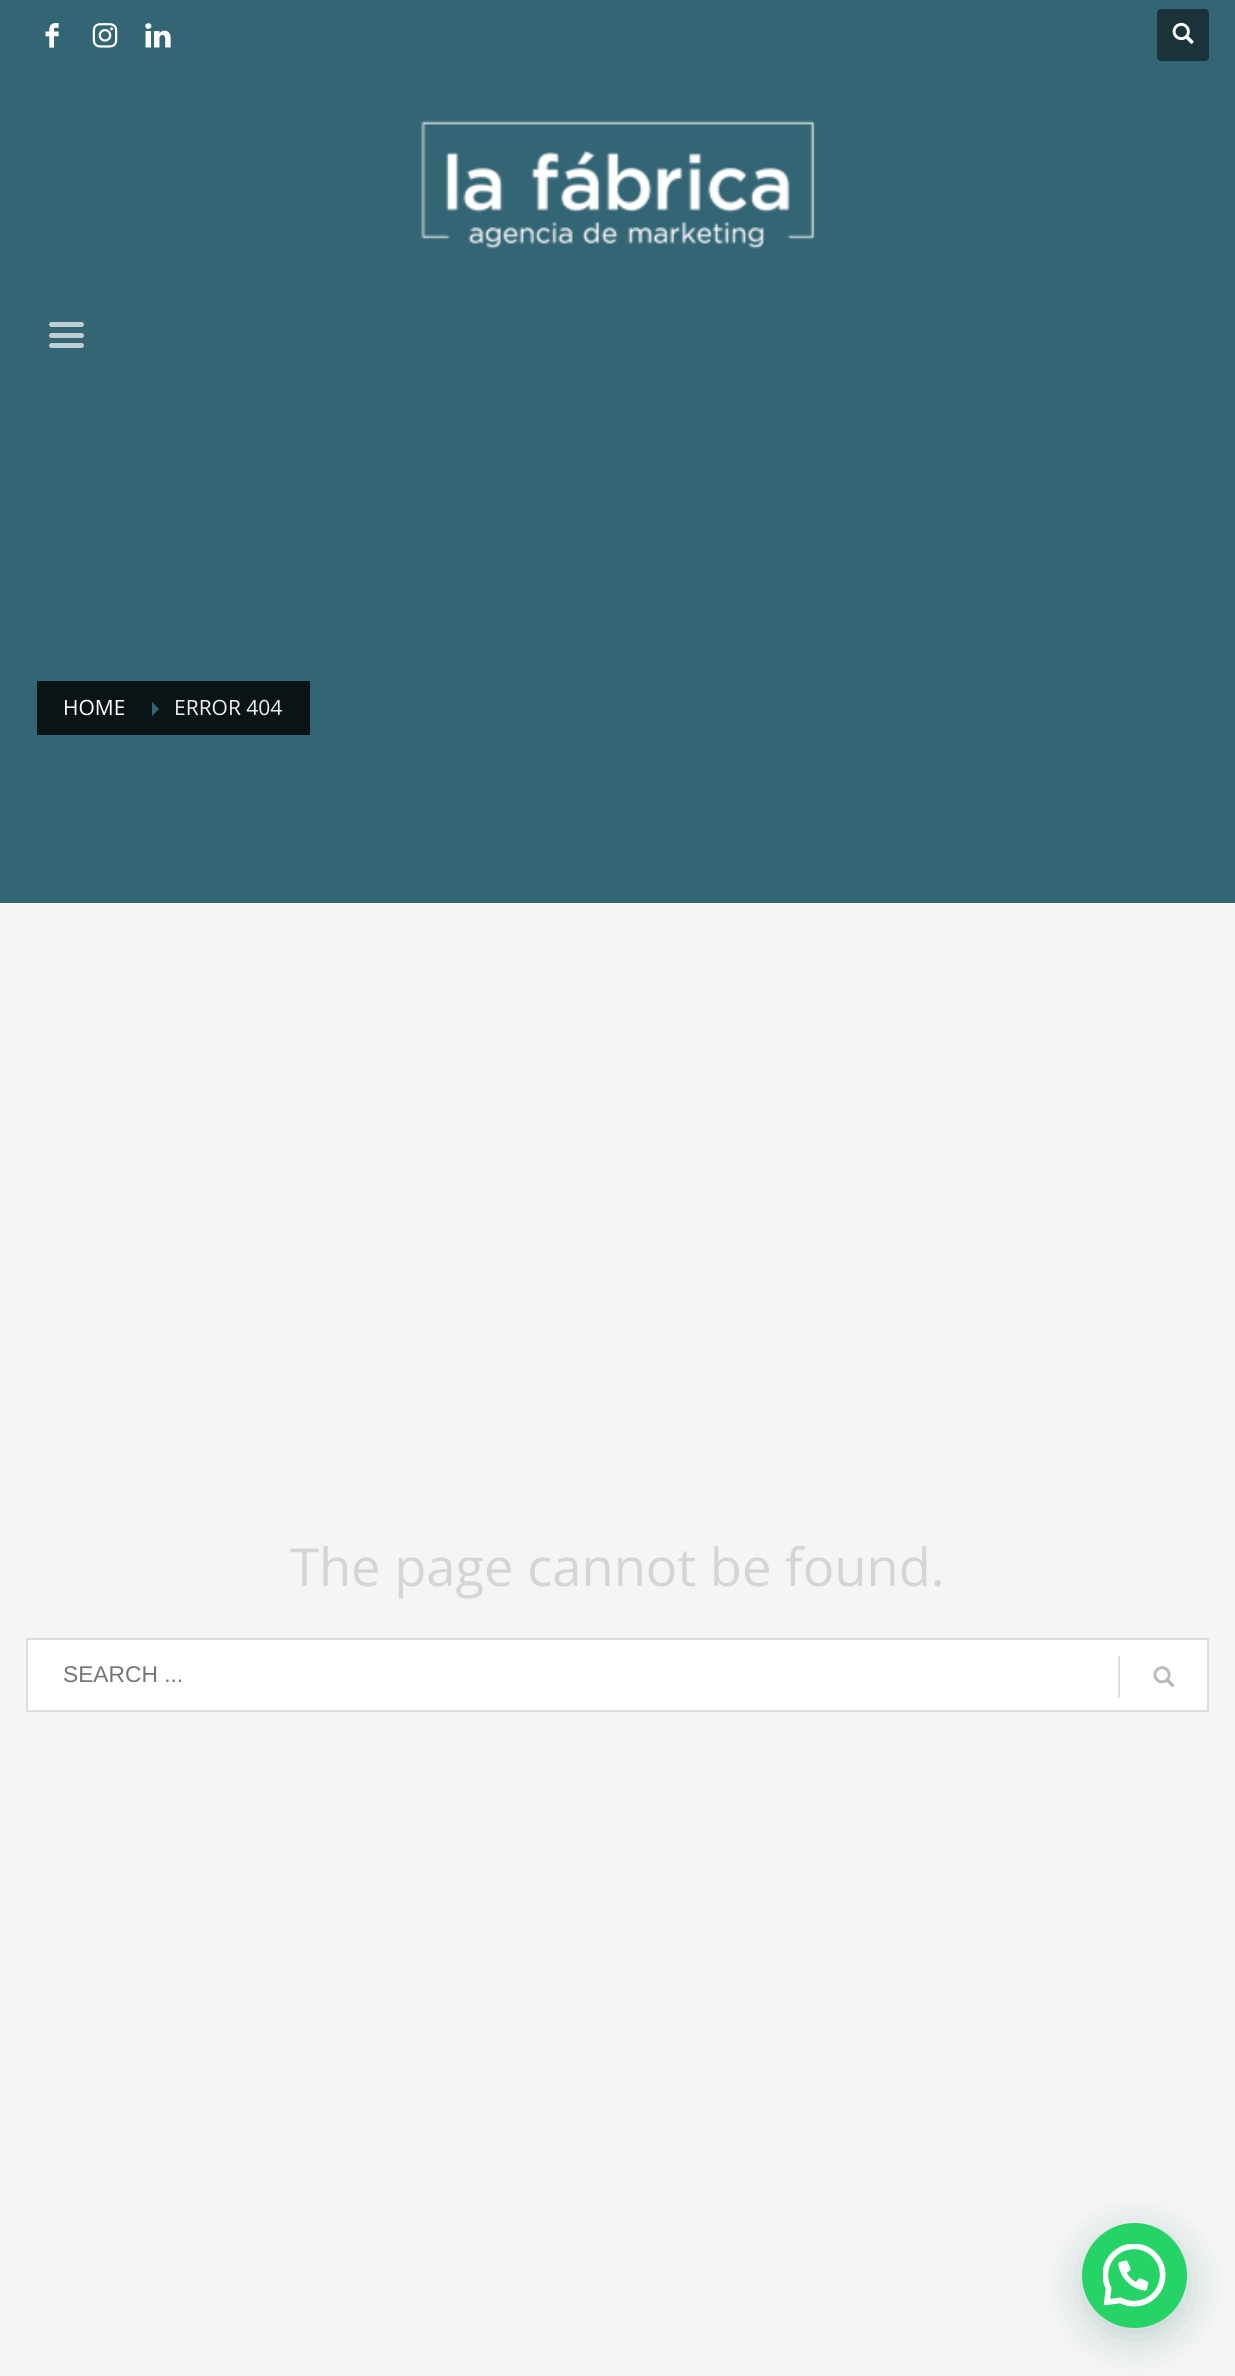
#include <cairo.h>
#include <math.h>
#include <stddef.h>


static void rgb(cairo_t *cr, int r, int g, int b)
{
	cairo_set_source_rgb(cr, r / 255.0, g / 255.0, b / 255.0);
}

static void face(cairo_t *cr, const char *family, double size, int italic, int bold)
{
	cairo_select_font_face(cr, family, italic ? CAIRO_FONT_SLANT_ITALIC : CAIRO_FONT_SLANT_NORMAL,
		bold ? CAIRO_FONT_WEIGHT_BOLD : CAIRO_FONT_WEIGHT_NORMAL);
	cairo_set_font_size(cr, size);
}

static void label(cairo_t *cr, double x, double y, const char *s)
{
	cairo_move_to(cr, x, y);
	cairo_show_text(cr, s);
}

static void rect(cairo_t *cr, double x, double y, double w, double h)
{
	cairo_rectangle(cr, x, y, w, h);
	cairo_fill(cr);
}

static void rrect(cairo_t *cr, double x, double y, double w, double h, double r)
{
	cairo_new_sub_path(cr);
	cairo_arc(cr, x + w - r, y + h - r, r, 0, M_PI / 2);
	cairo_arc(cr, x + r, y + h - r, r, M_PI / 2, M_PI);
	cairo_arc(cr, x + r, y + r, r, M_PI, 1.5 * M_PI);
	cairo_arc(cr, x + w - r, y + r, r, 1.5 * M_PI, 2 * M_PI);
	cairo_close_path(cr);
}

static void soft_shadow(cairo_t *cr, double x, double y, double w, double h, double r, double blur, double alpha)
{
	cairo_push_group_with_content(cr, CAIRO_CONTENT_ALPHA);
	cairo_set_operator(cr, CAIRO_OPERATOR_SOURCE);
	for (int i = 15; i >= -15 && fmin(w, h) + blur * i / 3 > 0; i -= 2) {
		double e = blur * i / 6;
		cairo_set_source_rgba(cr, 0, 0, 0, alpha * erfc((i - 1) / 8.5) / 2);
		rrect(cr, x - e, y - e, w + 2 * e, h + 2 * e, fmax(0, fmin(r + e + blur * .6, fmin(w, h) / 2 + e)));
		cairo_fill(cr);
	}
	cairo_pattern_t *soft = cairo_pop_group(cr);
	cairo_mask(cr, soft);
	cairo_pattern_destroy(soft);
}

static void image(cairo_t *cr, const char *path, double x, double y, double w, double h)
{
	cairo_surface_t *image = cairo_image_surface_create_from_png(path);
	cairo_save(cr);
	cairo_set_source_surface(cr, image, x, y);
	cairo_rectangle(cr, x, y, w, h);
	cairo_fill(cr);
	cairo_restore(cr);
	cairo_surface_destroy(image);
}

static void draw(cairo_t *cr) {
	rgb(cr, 245, 245, 245);
	cairo_paint(cr);
	rgb(cr, 52, 101, 116);
	rect(cr, 0, 0, 1235, 903);
	image(cr, "image0.png", 45, 23, 14, 25);
	image(cr, "image1.png", 92, 23, 26, 25);
	image(cr, "image2.png", 145, 23, 26, 25);
	rgb(cr, 26, 51, 58);
	rrect(cr, 1157, 9, 52, 52, 4);
	cairo_fill(cr);
	image(cr, "image3.png", 1172, 22, 22, 22);
	image(cr, "image4.png", 420, 120, 395, 129);
	rgb(cr, 190, 206, 210);
	rrect(cr, 49, 322, 35, 5, 2.5);
	cairo_fill(cr);
	rrect(cr, 49, 333, 35, 5, 2.5);
	cairo_fill(cr);
	rrect(cr, 49, 343, 35, 5, 2.5);
	cairo_fill(cr);
	rgb(cr, 10, 20, 23);
	rect(cr, 37, 681, 273, 54);
	face(cr, "Open Sans", 21, 0, 0);
	rgb(cr, 255, 255, 255);
	label(cr, 63, 715, "HOME");
	rgb(cr, 52, 101, 116);
	cairo_new_path(cr);
	cairo_move_to(cr, 152, 716);
	cairo_line_to(cr, 152, 702);
	cairo_line_to(cr, 159, 709);
	cairo_close_path(cr);
	cairo_fill(cr);
	rgb(cr, 238, 238, 238);
	label(cr, 174, 715, "ERROR 404");
	face(cr, "Open Sans", 52.5, 0, 0);
	rgb(cr, 213, 213, 213);
	label(cr, 290, 1586, "The page cannot be found.");
	rgb(cr, 255, 255, 255);
	cairo_rectangle(cr, 27, 1639, 1181, 72);
	cairo_fill_preserve(cr);
	rgb(cr, 221, 221, 221);
	cairo_stroke(cr);
	face(cr, "Liberation Sans", 22.75, 0, 0);
	rgb(cr, 117, 117, 117);
	label(cr, 63, 1682, "SEARCH ...");
	rgb(cr, 221, 221, 221);
	rect(cr, 1118, 1656, 2, 42);
	image(cr, "image5.png", 1153, 1666, 22, 21);
	rgb(cr, 7, 94, 84);
	soft_shadow(cr, 1083, 2233, 105, 105, 52.5, 21, 0.24);
	rgb(cr, 37, 211, 102);
	cairo_arc(cr, 1134.5, 2275.5, 52.5, 0, 2 * M_PI);
	cairo_fill(cr);
	image(cr, "image6.png", 1103, 2244, 63, 63);
}

int main(void) {
	cairo_surface_t *surface = cairo_image_surface_create(CAIRO_FORMAT_RGB24, 1235, 2376);
	cairo_t *cr = cairo_create(surface);
	cairo_font_options_t *options = cairo_font_options_create();
	cairo_font_options_set_hint_metrics(options, CAIRO_HINT_METRICS_OFF);
	cairo_font_options_set_hint_style(options, CAIRO_HINT_STYLE_NONE);
	cairo_set_font_options(cr, options);
	cairo_set_miter_limit(cr, 4);
	draw(cr);
	cairo_surface_write_to_png(surface, "render.png");
	cairo_font_options_destroy(options);
	cairo_destroy(cr);
	cairo_surface_destroy(surface);
	return 0;
}
